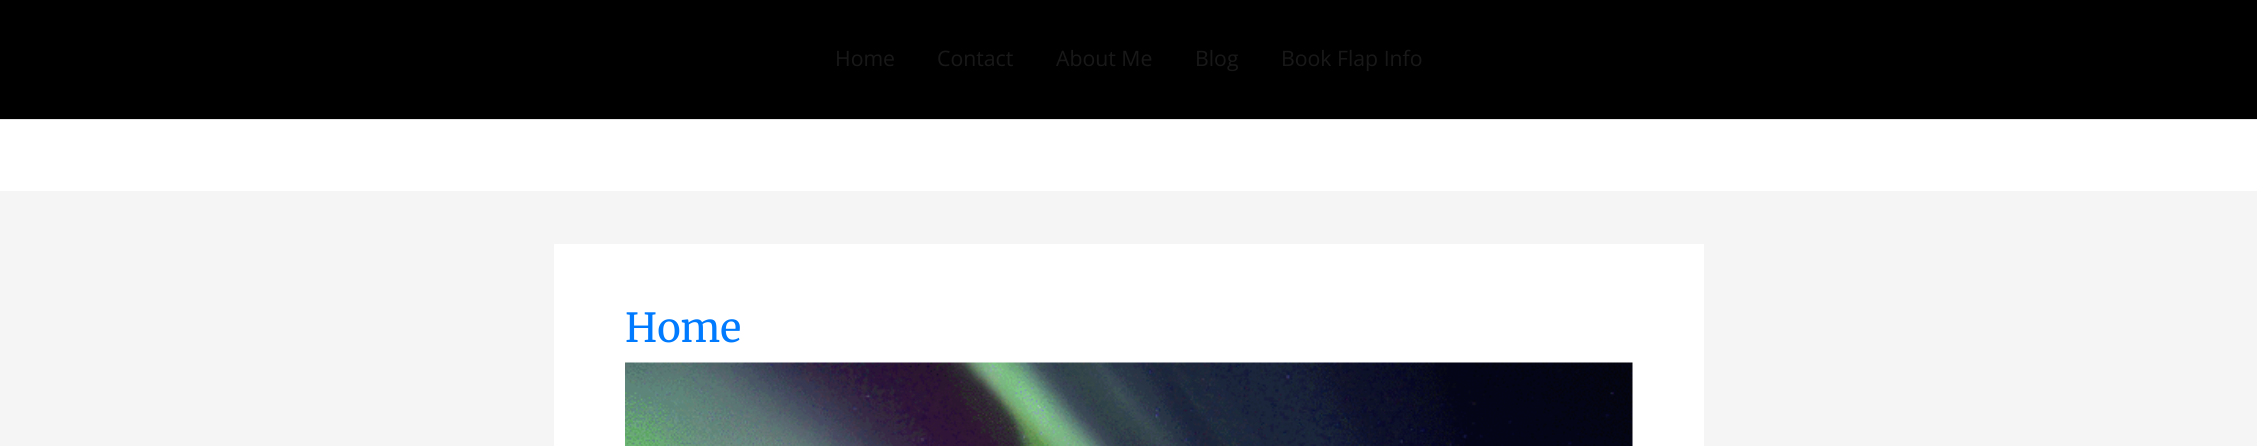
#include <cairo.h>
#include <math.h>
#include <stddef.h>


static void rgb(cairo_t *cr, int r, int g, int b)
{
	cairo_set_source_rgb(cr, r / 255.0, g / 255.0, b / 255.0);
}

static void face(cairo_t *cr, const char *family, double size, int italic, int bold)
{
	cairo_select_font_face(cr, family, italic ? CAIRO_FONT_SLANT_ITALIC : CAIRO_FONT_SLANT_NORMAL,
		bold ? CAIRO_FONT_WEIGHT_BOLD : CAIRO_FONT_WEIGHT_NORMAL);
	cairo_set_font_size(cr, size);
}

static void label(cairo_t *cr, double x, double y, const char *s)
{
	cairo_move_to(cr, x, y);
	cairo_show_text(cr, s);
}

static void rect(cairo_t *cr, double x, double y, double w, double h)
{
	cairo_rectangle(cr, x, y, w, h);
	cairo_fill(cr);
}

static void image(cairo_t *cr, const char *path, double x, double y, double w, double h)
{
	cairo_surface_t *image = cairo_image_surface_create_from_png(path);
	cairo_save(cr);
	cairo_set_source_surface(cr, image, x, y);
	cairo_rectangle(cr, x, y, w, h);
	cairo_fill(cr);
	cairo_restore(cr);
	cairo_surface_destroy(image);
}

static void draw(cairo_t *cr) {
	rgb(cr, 245, 245, 245);
	cairo_paint(cr);
	rgb(cr, 255, 255, 255);
	rect(cr, 0, 120, 2257, 71);
	rgb(cr, 230, 230, 230);
	cairo_new_path(cr);
	cairo_move_to(cr, 0, 119);
	cairo_line_to(cr, 0, 120);
	cairo_line_to(cr, 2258, 120);
	cairo_line_to(cr, 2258, 1);
	cairo_line_to(cr, 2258, 119);
	cairo_close_path(cr);
	cairo_fill(cr);
	rgb(cr, 0, 0, 0);
	rect(cr, 0, 0, 2257, 119);
	face(cr, "Open Sans", 21.25, 0, 0);
	rgb(cr, 24, 24, 24);
	label(cr, 835, 66, "Home");
	label(cr, 937, 66, "Contact");
	label(cr, 1056, 66, "About Me");
	label(cr, 1195, 66, "Blog");
	label(cr, 1281, 66, "Book Flap Info");
	rgb(cr, 255, 255, 255);
	rect(cr, 554, 244, 1150, 202);
	face(cr, "Merriweather Light", 40, 0, 0);
	rgb(cr, 0, 123, 255);
	label(cr, 625, 342, "Home");
	image(cr, "image0.png", 625, 362, 1008, 84);
}

int main(void) {
	cairo_surface_t *surface = cairo_image_surface_create(CAIRO_FORMAT_RGB24, 2257, 446);
	cairo_t *cr = cairo_create(surface);
	cairo_font_options_t *options = cairo_font_options_create();
	cairo_font_options_set_hint_metrics(options, CAIRO_HINT_METRICS_OFF);
	cairo_font_options_set_hint_style(options, CAIRO_HINT_STYLE_NONE);
	cairo_set_font_options(cr, options);
	cairo_set_miter_limit(cr, 4);
	draw(cr);
	cairo_surface_write_to_png(surface, "render.png");
	cairo_font_options_destroy(options);
	cairo_destroy(cr);
	cairo_surface_destroy(surface);
	return 0;
}
